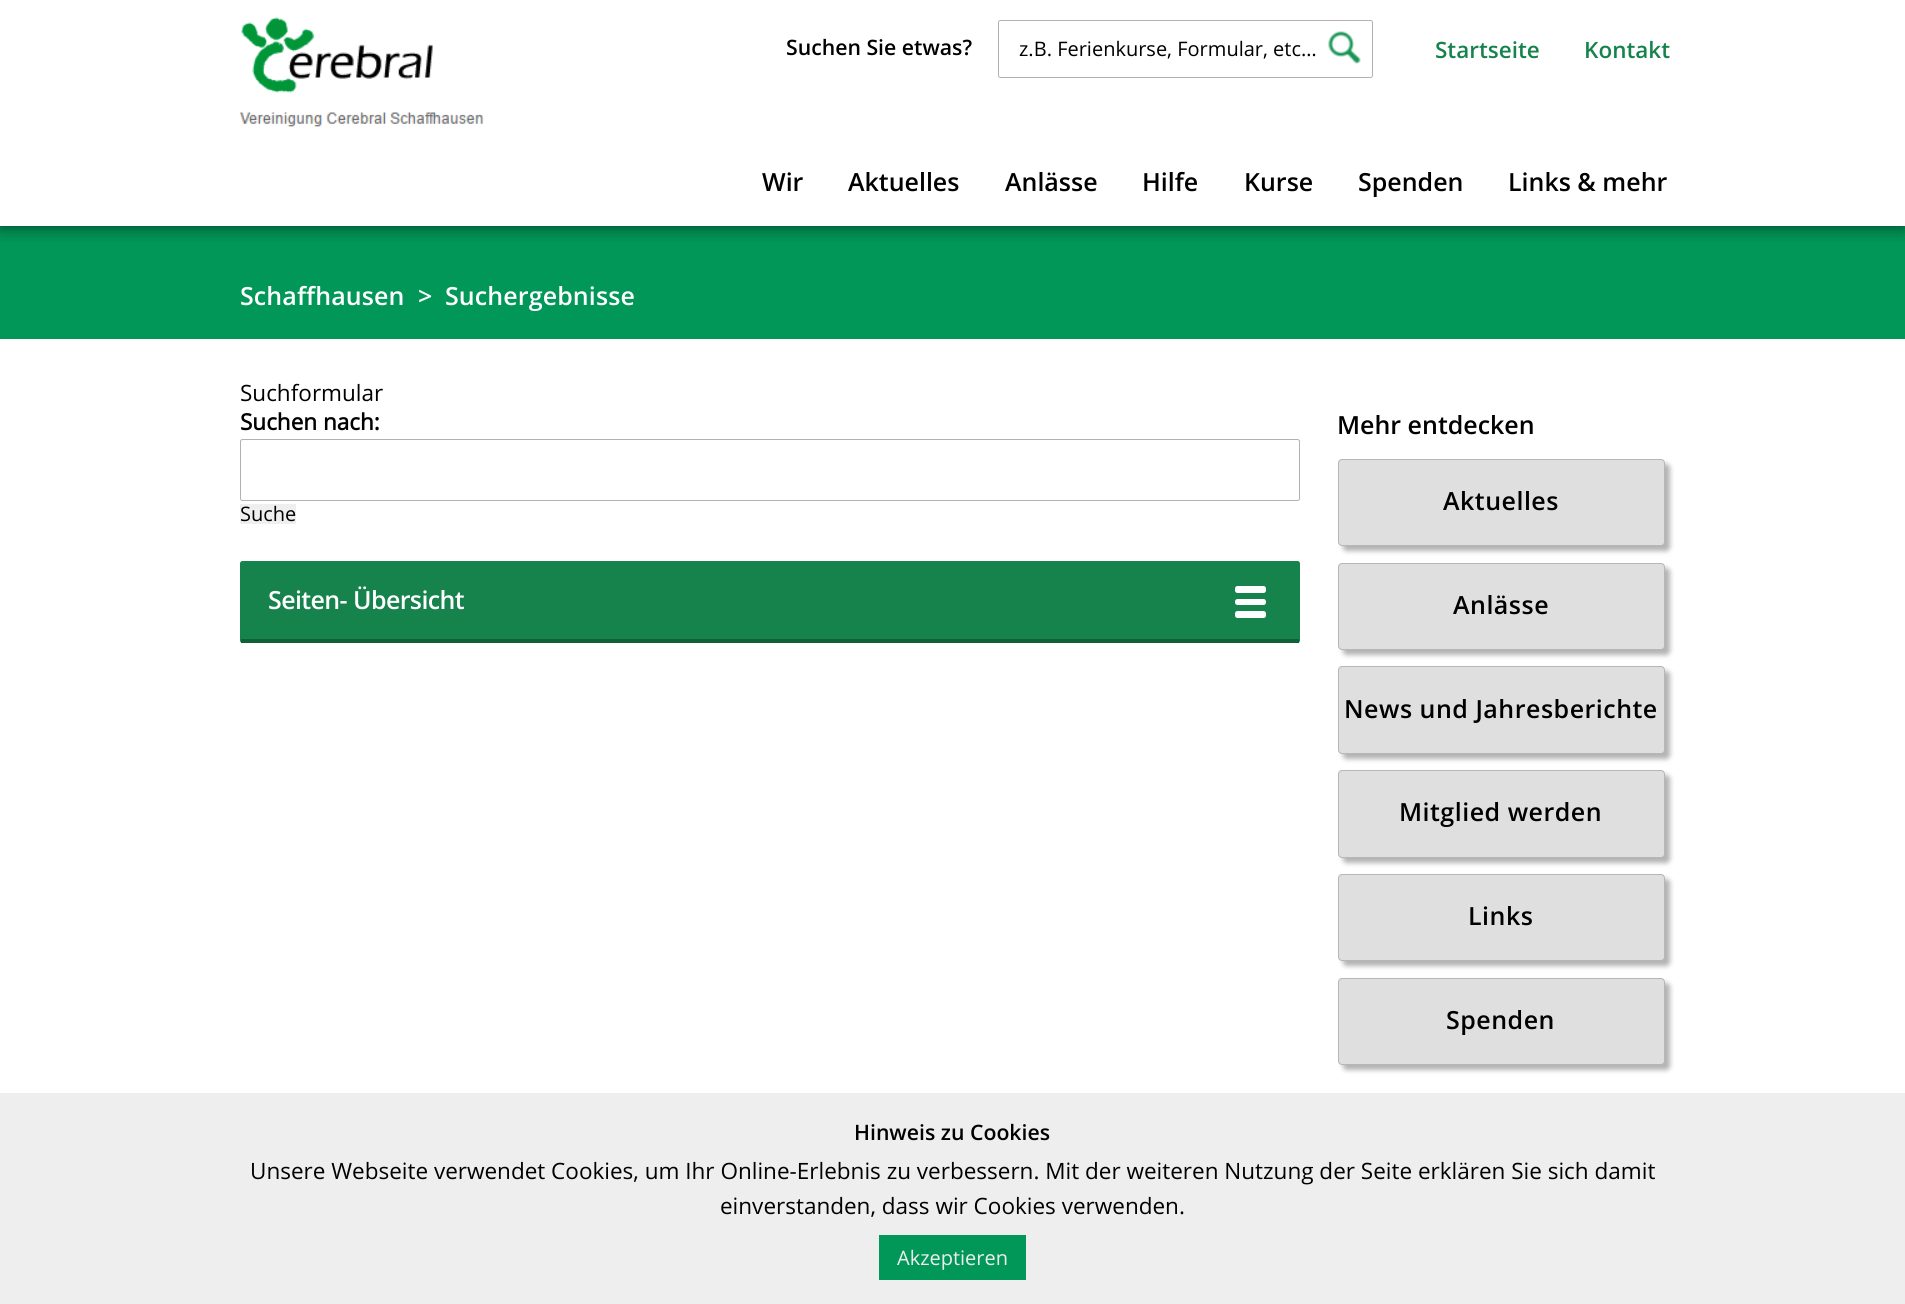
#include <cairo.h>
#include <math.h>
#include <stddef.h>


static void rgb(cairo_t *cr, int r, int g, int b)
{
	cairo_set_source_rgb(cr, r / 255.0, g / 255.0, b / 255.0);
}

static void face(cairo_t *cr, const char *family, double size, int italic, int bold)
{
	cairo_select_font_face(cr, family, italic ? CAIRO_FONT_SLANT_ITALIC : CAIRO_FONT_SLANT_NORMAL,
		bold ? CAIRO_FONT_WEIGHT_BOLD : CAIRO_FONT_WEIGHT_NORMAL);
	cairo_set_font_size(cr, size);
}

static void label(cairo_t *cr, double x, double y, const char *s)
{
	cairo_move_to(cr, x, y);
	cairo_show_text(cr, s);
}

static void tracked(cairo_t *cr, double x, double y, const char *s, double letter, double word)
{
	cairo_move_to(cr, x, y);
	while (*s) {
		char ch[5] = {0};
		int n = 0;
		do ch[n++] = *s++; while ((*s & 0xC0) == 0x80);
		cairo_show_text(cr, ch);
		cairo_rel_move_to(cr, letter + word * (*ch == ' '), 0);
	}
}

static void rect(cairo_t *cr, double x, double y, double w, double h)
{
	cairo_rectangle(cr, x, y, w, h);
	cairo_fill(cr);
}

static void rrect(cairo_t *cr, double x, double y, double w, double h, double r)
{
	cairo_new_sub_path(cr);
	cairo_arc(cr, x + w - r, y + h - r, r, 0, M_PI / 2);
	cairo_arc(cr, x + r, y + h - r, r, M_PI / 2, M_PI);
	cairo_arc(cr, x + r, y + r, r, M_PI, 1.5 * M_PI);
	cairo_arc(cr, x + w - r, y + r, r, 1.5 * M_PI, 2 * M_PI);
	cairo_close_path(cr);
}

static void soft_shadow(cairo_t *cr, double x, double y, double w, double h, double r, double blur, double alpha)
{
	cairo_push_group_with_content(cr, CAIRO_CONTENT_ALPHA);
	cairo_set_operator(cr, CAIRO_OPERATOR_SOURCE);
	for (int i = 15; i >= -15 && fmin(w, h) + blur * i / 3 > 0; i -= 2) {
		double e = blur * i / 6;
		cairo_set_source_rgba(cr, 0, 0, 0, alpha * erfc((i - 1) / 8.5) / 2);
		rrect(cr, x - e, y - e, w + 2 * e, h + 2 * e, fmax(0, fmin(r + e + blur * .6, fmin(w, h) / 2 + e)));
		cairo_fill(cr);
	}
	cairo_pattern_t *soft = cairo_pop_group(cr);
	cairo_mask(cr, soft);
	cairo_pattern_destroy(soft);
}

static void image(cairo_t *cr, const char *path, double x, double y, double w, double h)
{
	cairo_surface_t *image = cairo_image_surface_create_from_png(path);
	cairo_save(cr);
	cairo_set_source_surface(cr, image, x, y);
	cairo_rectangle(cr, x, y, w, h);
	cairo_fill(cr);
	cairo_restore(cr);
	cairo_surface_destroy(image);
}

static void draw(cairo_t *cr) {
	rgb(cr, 255, 255, 255);
	cairo_paint(cr);
	rgb(cr, 1, 151, 88);
	rect(cr, 0, 226, 1905, 113);
	cairo_save(cr);
	cairo_rectangle(cr, 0, 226, 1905, 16);
	cairo_clip(cr);
	rgb(cr, 0, 0, 0);
	soft_shadow(cr, 0, 0, 1905, 226, 0, 9, 0.6);
	cairo_restore(cr);
	image(cr, "image0.png", 240, 17, 244, 110);
	face(cr, "Open Sans SemiBold", 21.25, 0, 0);
	rgb(cr, 0, 0, 0);
	label(cr, 786, 55, "Suchen Sie etwas?");
	rrect(cr, 998.5, 20.5, 374, 57, 2);
	rgb(cr, 177, 177, 177);
	cairo_set_line_width(cr, 1);
	cairo_stroke(cr);
	face(cr, "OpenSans", 20, 0, 0);
	rgb(cr, 0, 0, 0);
	label(cr, 1019, 56, "z.B. Ferienkurse, Formular, etc…");
	image(cr, "image1.png", 1328, 31, 33, 33);
	face(cr, "Open Sans SemiBold", 22.5, 0, 0);
	rgb(cr, 22, 131, 77);
	label(cr, 1435, 58, "Startseite");
	label(cr, 1584, 58, "Kontakt");
	face(cr, "Open Sans SemiBold", 25, 0, 0);
	rgb(cr, 0, 0, 0);
	label(cr, 762, 191, "Wir");
	label(cr, 848, 191, "Aktuelles");
	label(cr, 1005, 191, "Anlässe");
	label(cr, 1142, 191, "Hilfe");
	label(cr, 1244, 191, "Kurse");
	label(cr, 1358, 191, "Spenden");
	label(cr, 1508, 191, "Links & mehr");
	rgb(cr, 255, 255, 255);
	tracked(cr, 240, 305, "Schaffhausen", 0.1, 0);
	label(cr, 418, 305, ">");
	tracked(cr, 445, 305, "Suchergebnisse", 0.1, 0);
	face(cr, "OpenSans", 22.5, 0, 0);
	rgb(cr, 0, 0, 0);
	label(cr, 240, 401, "Suchformular");
	face(cr, "OpenSans", 22.5, 0, 1);
	label(cr, 240, 430, "Suchen nach:");
	rrect(cr, 240.5, 439.5, 1059, 61, 2);
	rgb(cr, 177, 177, 177);
	cairo_stroke(cr);
	rgb(cr, 239, 239, 239);
	rect(cr, 240, 504, 56, 20);
	face(cr, "OpenSans", 20, 0, 0);
	rgb(cr, 0, 0, 0);
	label(cr, 240, 521, "Suche");
	rgb(cr, 22, 131, 77);
	rrect(cr, 240, 561, 1060, 82, 2.5);
	cairo_fill(cr);
	rgb(cr, 16, 96, 57);
	rect(cr, 241, 639, 1058, 4);
	face(cr, "Open Sans SemiBold", 25, 0, 0);
	rgb(cr, 255, 255, 255);
	tracked(cr, 268, 609, "Seiten- Übersicht", -0.6, 0);
	rrect(cr, 1235, 599, 18, 6, 2.5);
	cairo_fill(cr);
	rrect(cr, 1235, 586, 18, 7, 2.5);
	cairo_fill(cr);
	rrect(cr, 1235, 611, 18, 7, 2.5);
	cairo_fill(cr);
	rrect(cr, 1249, 599, 17, 6, 2.5);
	cairo_fill(cr);
	rrect(cr, 1249, 586, 17, 7, 2.5);
	cairo_fill(cr);
	rrect(cr, 1249, 611, 17, 7, 2.5);
	cairo_fill(cr);
	rgb(cr, 0, 0, 0);
	label(cr, 1337, 434, "Mehr entdecken");
	rgb(cr, 0, 0, 0);
	soft_shadow(cr, 1343, 464, 327, 87, 4, 2.5, 0.3);
	rgb(cr, 223, 223, 223);
	rrect(cr, 1338.5, 459.5, 326, 86, 3.5);
	cairo_fill_preserve(cr);
	rgb(cr, 182, 182, 182);
	cairo_stroke(cr);
	rgb(cr, 0, 0, 0);
	tracked(cr, 1443, 510, "Aktuelles", 0.5, 0);
	rgb(cr, 0, 0, 0);
	soft_shadow(cr, 1343, 568, 327, 87, 4, 2.5, 0.3);
	rgb(cr, 223, 223, 223);
	rrect(cr, 1338.5, 563.5, 326, 86, 3.5);
	cairo_fill_preserve(cr);
	rgb(cr, 182, 182, 182);
	cairo_stroke(cr);
	rgb(cr, 0, 0, 0);
	tracked(cr, 1453, 614, "Anlässe", 0.5, 0);
	rgb(cr, 0, 0, 0);
	soft_shadow(cr, 1343, 671, 327, 88, 4, 2.5, 0.3);
	rgb(cr, 223, 223, 223);
	rrect(cr, 1338.5, 666.5, 326, 87, 3.5);
	cairo_fill_preserve(cr);
	rgb(cr, 182, 182, 182);
	cairo_stroke(cr);
	rgb(cr, 0, 0, 0);
	tracked(cr, 1344, 718, "News und Jahresberichte", 0.5, 0);
	rgb(cr, 0, 0, 0);
	soft_shadow(cr, 1343, 775, 327, 88, 4, 2.5, 0.3);
	rgb(cr, 223, 223, 223);
	rrect(cr, 1338.5, 770.5, 326, 87, 3.5);
	cairo_fill_preserve(cr);
	rgb(cr, 182, 182, 182);
	cairo_stroke(cr);
	rgb(cr, 0, 0, 0);
	tracked(cr, 1399, 821, "Mitglied werden", 0.5, 0);
	rgb(cr, 0, 0, 0);
	soft_shadow(cr, 1343, 879, 327, 87, 4, 2.5, 0.3);
	rgb(cr, 223, 223, 223);
	rrect(cr, 1338.5, 874.5, 326, 86, 3.5);
	cairo_fill_preserve(cr);
	rgb(cr, 182, 182, 182);
	cairo_stroke(cr);
	rgb(cr, 0, 0, 0);
	tracked(cr, 1468, 925, "Links", 0.5, 0);
	rgb(cr, 0, 0, 0);
	soft_shadow(cr, 1343, 983, 327, 87, 4, 2.5, 0.3);
	rgb(cr, 223, 223, 223);
	rrect(cr, 1338.5, 978.5, 326, 86, 3.5);
	cairo_fill_preserve(cr);
	rgb(cr, 182, 182, 182);
	cairo_stroke(cr);
	rgb(cr, 0, 0, 0);
	tracked(cr, 1446, 1029, "Spenden", 0.5, 0);
	rgb(cr, 238, 238, 238);
	rect(cr, 0, 1093, 1905, 211);
	face(cr, "Open Sans SemiBold", 21.25, 0, 0);
	rgb(cr, 0, 0, 0);
	label(cr, 854, 1140, "Hinweis zu Cookies");
	face(cr, "OpenSans", 22.5, 0, 0);
	label(cr, 250, 1179, "Unsere Webseite verwendet Cookies, um Ihr Online-Erlebnis zu verbessern. Mit der weiteren Nutzung der Seite erklären Sie sich damit");
	label(cr, 720, 1214, "einverstanden, dass wir Cookies verwenden.");
	rgb(cr, 1, 151, 88);
	rect(cr, 879, 1235, 147, 45);
	face(cr, "OpenSans", 20, 0, 0);
	rgb(cr, 238, 238, 238);
	label(cr, 897, 1265, "Akzeptieren");
}

int main(void) {
	cairo_surface_t *surface = cairo_image_surface_create(CAIRO_FORMAT_RGB24, 1905, 1304);
	cairo_t *cr = cairo_create(surface);
	cairo_font_options_t *options = cairo_font_options_create();
	cairo_font_options_set_hint_metrics(options, CAIRO_HINT_METRICS_OFF);
	cairo_font_options_set_hint_style(options, CAIRO_HINT_STYLE_NONE);
	cairo_set_font_options(cr, options);
	cairo_set_miter_limit(cr, 4);
	draw(cr);
	cairo_surface_write_to_png(surface, "render.png");
	cairo_font_options_destroy(options);
	cairo_destroy(cr);
	cairo_surface_destroy(surface);
	return 0;
}
